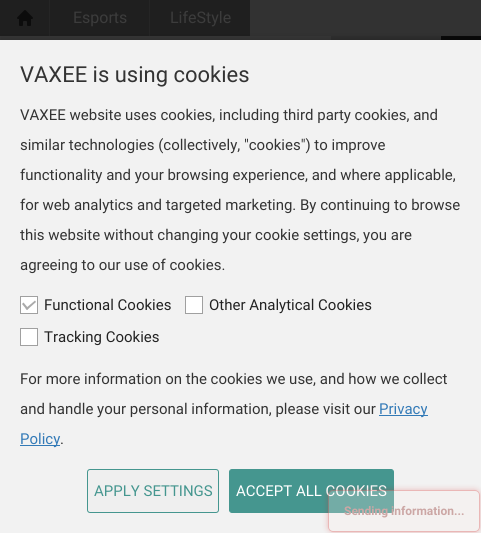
#include <cairo.h>
#include <math.h>
#include <stddef.h>


static void rgb(cairo_t *cr, int r, int g, int b)
{
	cairo_set_source_rgb(cr, r / 255.0, g / 255.0, b / 255.0);
}

static void face(cairo_t *cr, const char *family, double size, int italic, int bold)
{
	cairo_select_font_face(cr, family, italic ? CAIRO_FONT_SLANT_ITALIC : CAIRO_FONT_SLANT_NORMAL,
		bold ? CAIRO_FONT_WEIGHT_BOLD : CAIRO_FONT_WEIGHT_NORMAL);
	cairo_set_font_size(cr, size);
}

static void label(cairo_t *cr, double x, double y, const char *s)
{
	cairo_move_to(cr, x, y);
	cairo_show_text(cr, s);
}

static void rect(cairo_t *cr, double x, double y, double w, double h)
{
	cairo_rectangle(cr, x, y, w, h);
	cairo_fill(cr);
}

static void rrect(cairo_t *cr, double x, double y, double w, double h, double r)
{
	cairo_new_sub_path(cr);
	cairo_arc(cr, x + w - r, y + h - r, r, 0, M_PI / 2);
	cairo_arc(cr, x + r, y + h - r, r, M_PI / 2, M_PI);
	cairo_arc(cr, x + r, y + r, r, M_PI, 1.5 * M_PI);
	cairo_arc(cr, x + w - r, y + r, r, 1.5 * M_PI, 2 * M_PI);
	cairo_close_path(cr);
}

static void soft_shadow(cairo_t *cr, double x, double y, double w, double h, double r, double blur, double alpha)
{
	cairo_push_group_with_content(cr, CAIRO_CONTENT_ALPHA);
	cairo_set_operator(cr, CAIRO_OPERATOR_SOURCE);
	for (int i = 15; i >= -15 && fmin(w, h) + blur * i / 3 > 0; i -= 2) {
		double e = blur * i / 6;
		cairo_set_source_rgba(cr, 0, 0, 0, alpha * erfc((i - 1) / 8.5) / 2);
		rrect(cr, x - e, y - e, w + 2 * e, h + 2 * e, fmax(0, fmin(r + e + blur * .6, fmin(w, h) / 2 + e)));
		cairo_fill(cr);
	}
	cairo_pattern_t *soft = cairo_pop_group(cr);
	cairo_mask(cr, soft);
	cairo_pattern_destroy(soft);
}

static void image(cairo_t *cr, const char *path, double x, double y, double w, double h)
{
	cairo_surface_t *image = cairo_image_surface_create_from_png(path);
	cairo_save(cr);
	cairo_set_source_surface(cr, image, x, y);
	cairo_rectangle(cr, x, y, w, h);
	cairo_fill(cr);
	cairo_restore(cr);
	cairo_surface_destroy(image);
}

static void draw(cairo_t *cr) {
	rgb(cr, 50, 50, 50);
	cairo_paint(cr);
	rgb(cr, 31, 31, 31);
	rect(cr, 0, 0, 49, 36);
	image(cr, "image0.png", 17, 10, 16, 16);
	rect(cr, 50, 0, 99, 36);
	rgb(cr, 37, 37, 37);
	rect(cr, 49, 0, 1, 36);
	face(cr, "Roboto", 16, 0, 0);
	rgb(cr, 60, 60, 60);
	label(cr, 73, 23, "Esports");
	rgb(cr, 31, 31, 31);
	rect(cr, 150, 0, 100, 36);
	rgb(cr, 37, 37, 37);
	rect(cr, 149, 0, 1, 36);
	rgb(cr, 60, 60, 60);
	label(cr, 170, 23, "LifeStyle");
	rgb(cr, 55, 55, 55);
	rect(cr, 0, 36, 331, 4);
	rgb(cr, 47, 47, 47);
	rect(cr, 331, 36, 110, 4);
	rgb(cr, 9, 9, 9);
	rect(cr, 441, 36, 40, 4);
	rgb(cr, 0, 0, 0);
	soft_shadow(cr, 0, 39, 481, 493, 0, 4, 0.2);
	rgb(cr, 242, 242, 242);
	rect(cr, 0, 40, 481, 493);
	face(cr, "Roboto", 22, 0, 0);
	rgb(cr, 51, 51, 51);
	label(cr, 20, 82, "VAXEE is using cookies");
	face(cr, "Roboto", 15, 0, 0);
	label(cr, 20, 120, "VAXEE website uses cookies, including third party cookies, and");
	label(cr, 20, 150, "similar technologies (collectively, \"cookies\") to improve");
	label(cr, 20, 180, "functionality and your browsing experience, and where applicable,");
	label(cr, 20, 210, "for web analytics and targeted marketing. By continuing to browse");
	label(cr, 20, 240, "this website without changing your cookie settings, you are");
	label(cr, 20, 270, "agreeing to our use of cookies.");
	rgb(cr, 255, 255, 255);
	cairo_rectangle(cr, 20.5, 296.5, 17, 17);
	cairo_fill_preserve(cr);
	rgb(cr, 160, 160, 160);
	cairo_set_line_width(cr, 1);
	cairo_stroke(cr);
	rgb(cr, 170, 170, 170);
	cairo_new_path(cr);
	cairo_move_to(cr, 25.5, 308.5);
	cairo_line_to(cr, 35, 300.5);
	cairo_line_to(cr, 36, 302);
	cairo_line_to(cr, 27, 310);
	cairo_close_path(cr);
	cairo_fill(cr);
	cairo_new_path(cr);
	cairo_move_to(cr, 22, 304);
	cairo_line_to(cr, 23.5, 302.5);
	cairo_line_to(cr, 28.5, 308.5);
	cairo_line_to(cr, 27, 310);
	cairo_close_path(cr);
	cairo_fill(cr);
	rgb(cr, 34, 34, 34);
	label(cr, 44, 310, "Functional Cookies");
	rgb(cr, 255, 255, 255);
	cairo_rectangle(cr, 185.5, 296.5, 17, 17);
	cairo_fill_preserve(cr);
	rgb(cr, 160, 160, 160);
	cairo_stroke(cr);
	rgb(cr, 34, 34, 34);
	label(cr, 209, 310, "Other Analytical Cookies");
	rgb(cr, 255, 255, 255);
	cairo_rectangle(cr, 20.5, 328.5, 17, 17);
	cairo_fill_preserve(cr);
	rgb(cr, 160, 160, 160);
	cairo_stroke(cr);
	rgb(cr, 34, 34, 34);
	label(cr, 44, 342, "Tracking Cookies");
	rgb(cr, 51, 51, 51);
	label(cr, 20, 384, "For more information on the cookies we use, and how we collect");
	label(cr, 20, 414, "and handle your personal information, please visit our");
	rgb(cr, 51, 122, 183);
	rect(cr, 379, 415, 49, 1);
	label(cr, 379, 414, "Privacy");
	rect(cr, 20, 445, 40, 1);
	label(cr, 20, 444, "Policy");
	rgb(cr, 51, 51, 51);
	label(cr, 60, 444, ".");
	rgb(cr, 239, 239, 239);
	rrect(cr, 87.5, 469.5, 131, 43, 2.5);
	cairo_fill_preserve(cr);
	rgb(cr, 69, 150, 143);
	cairo_stroke(cr);
	label(cr, 94, 496, "APPLY SETTINGS");
	rrect(cr, 229.5, 469.5, 164, 43, 2.5);
	cairo_fill_preserve(cr);
	cairo_stroke(cr);
	rgb(cr, 255, 255, 255);
	label(cr, 236, 496, "ACCEPT ALL COOKIES");
	cairo_save(cr);
	cairo_set_fill_rule(cr, CAIRO_FILL_RULE_EVEN_ODD);
	cairo_new_path(cr);
	cairo_move_to(cr, 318, 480);
	cairo_line_to(cr, 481, 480);
	cairo_line_to(cr, 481, 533);
	cairo_line_to(cr, 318, 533);
	cairo_close_path(cr);
	cairo_move_to(cr, 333, 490);
	cairo_line_to(cr, 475, 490);
	cairo_curve_to(cr, 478, 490, 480, 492, 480, 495);
	cairo_line_to(cr, 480, 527);
	cairo_curve_to(cr, 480, 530, 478, 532, 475, 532);
	cairo_line_to(cr, 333, 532);
	cairo_curve_to(cr, 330, 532, 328, 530, 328, 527);
	cairo_line_to(cr, 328, 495);
	cairo_curve_to(cr, 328, 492, 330, 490, 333, 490);
	cairo_close_path(cr);
	cairo_clip(cr);
	rgb(cr, 205, 10, 10);
	soft_shadow(cr, 328, 490, 152, 42, 5, 3, 0.25);
	cairo_restore(cr);
	cairo_set_source_rgba(cr, 0.996, 0.945, 0.925, 0.25);
	rrect(cr, 328, 490, 152, 42, 5);
	cairo_fill(cr);
	rrect(cr, 328.5, 490.5, 151, 41, 4.5);
	cairo_set_source_rgba(cr, 0.804, 0.039, 0.039, 0.25);
	cairo_stroke(cr);
	face(cr, "Roboto", 12, 0, 1);
	rgb(cr, 204, 167, 165);
	label(cr, 344, 515, "Sending information...");
}

int main(void) {
	cairo_surface_t *surface = cairo_image_surface_create(CAIRO_FORMAT_RGB24, 481, 533);
	cairo_t *cr = cairo_create(surface);
	cairo_font_options_t *options = cairo_font_options_create();
	cairo_font_options_set_hint_metrics(options, CAIRO_HINT_METRICS_OFF);
	cairo_font_options_set_hint_style(options, CAIRO_HINT_STYLE_NONE);
	cairo_set_font_options(cr, options);
	cairo_set_miter_limit(cr, 4);
	draw(cr);
	cairo_surface_write_to_png(surface, "render.png");
	cairo_font_options_destroy(options);
	cairo_destroy(cr);
	cairo_surface_destroy(surface);
	return 0;
}
